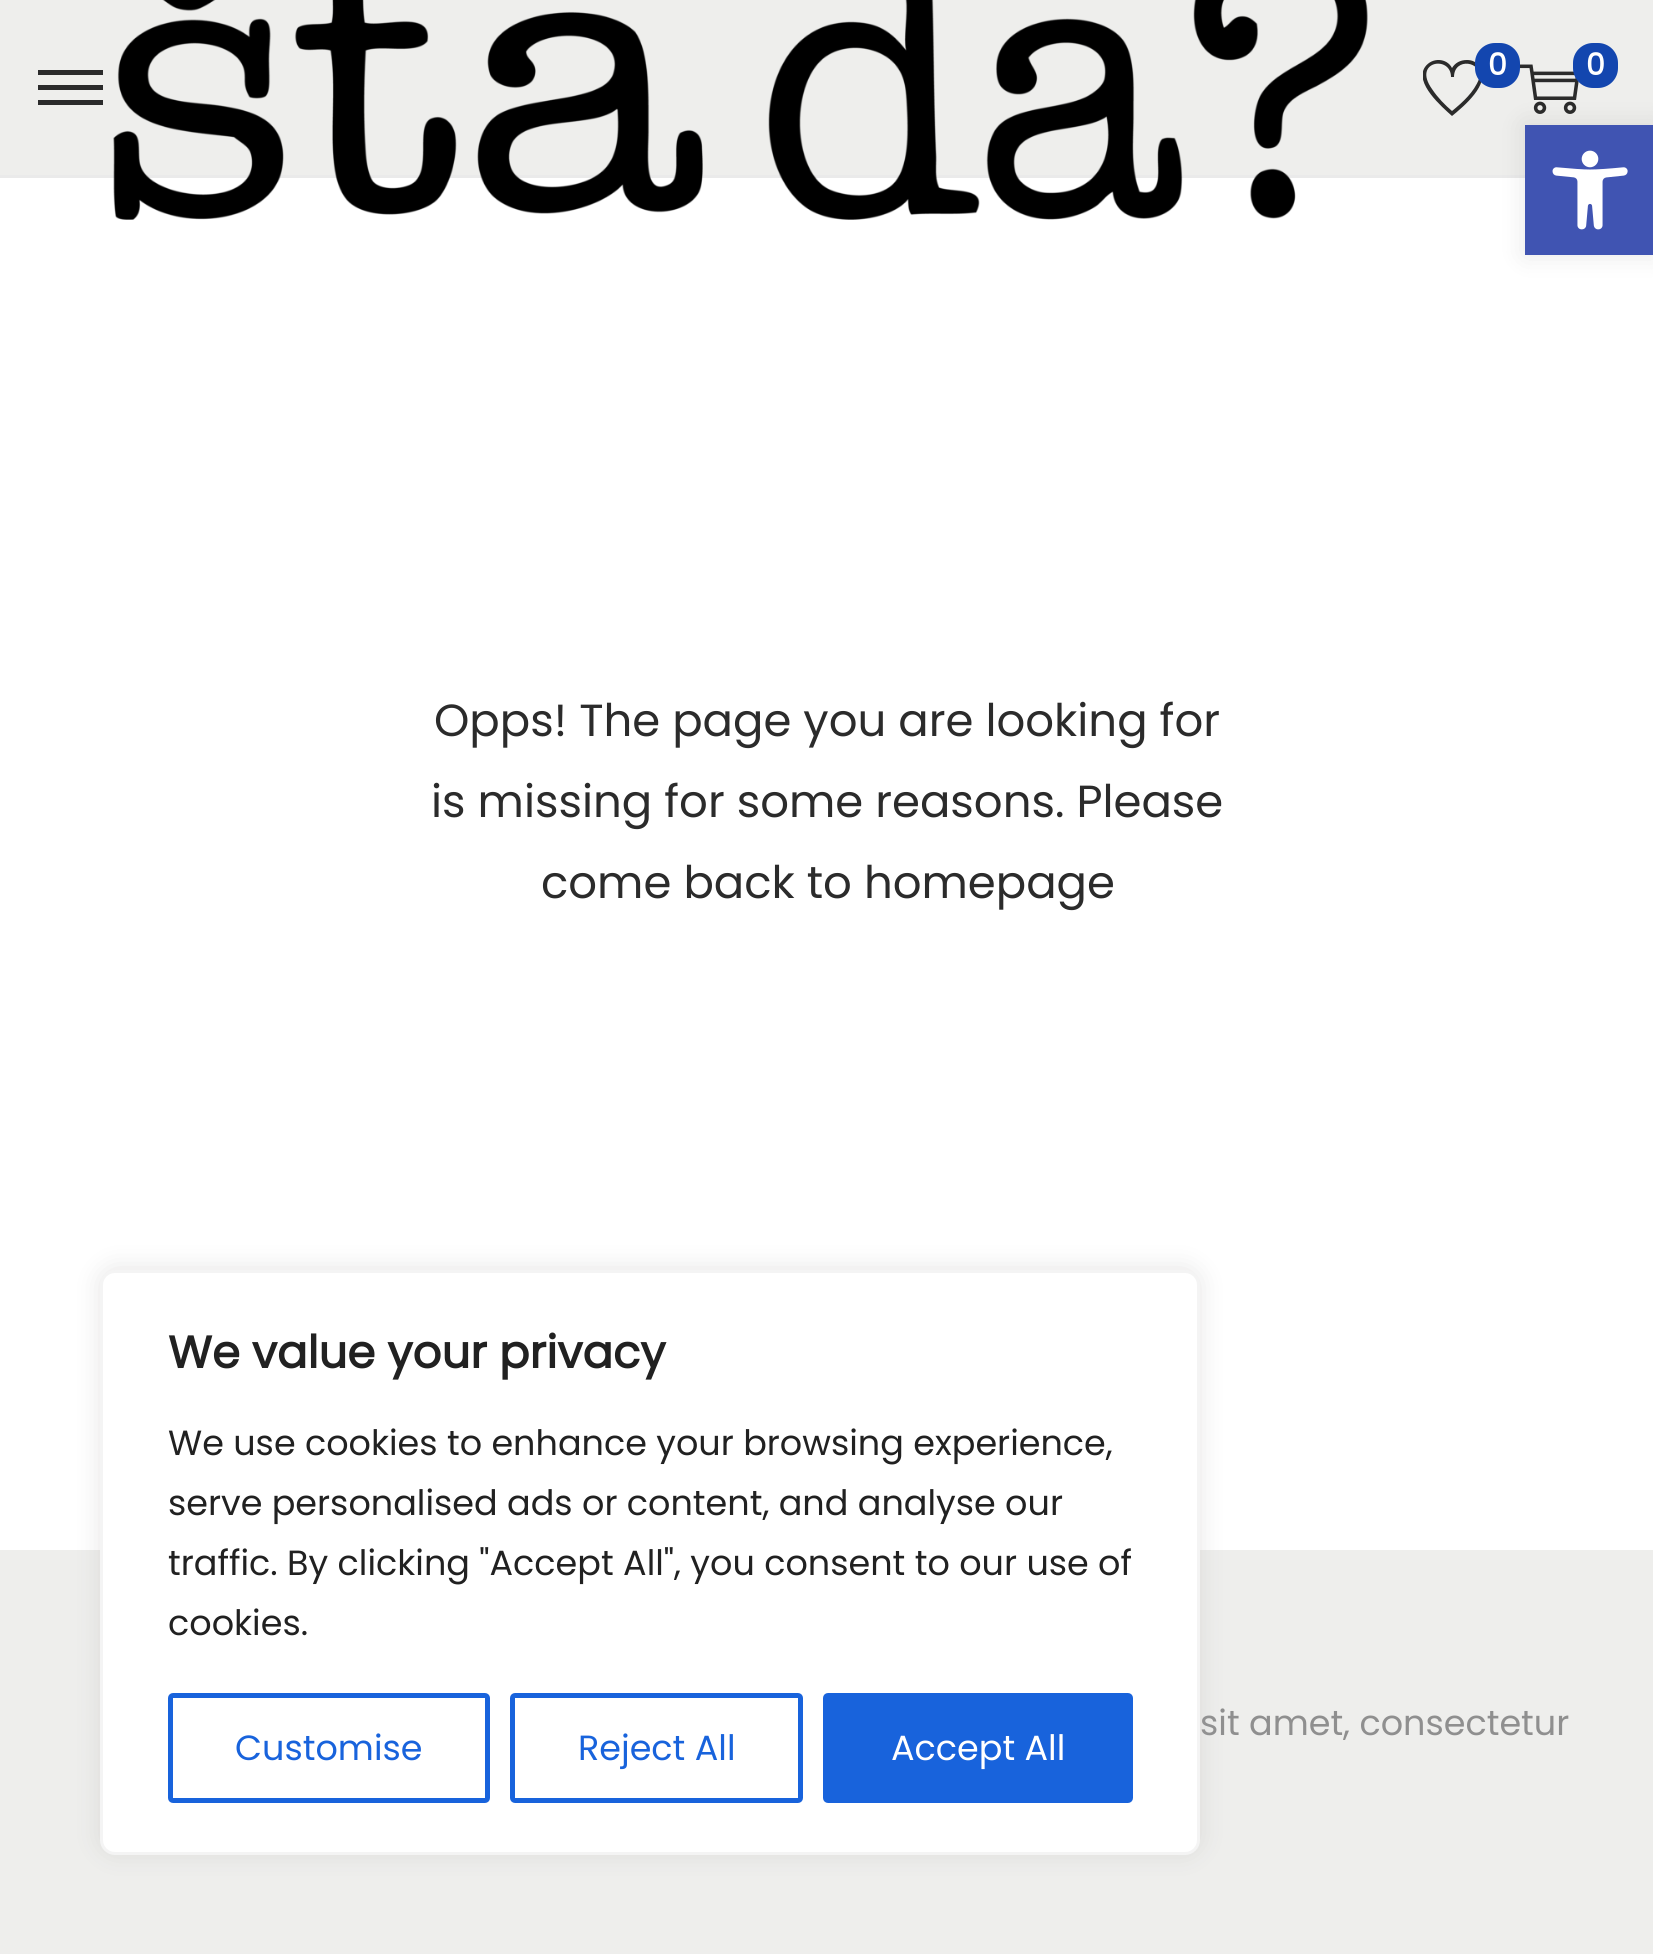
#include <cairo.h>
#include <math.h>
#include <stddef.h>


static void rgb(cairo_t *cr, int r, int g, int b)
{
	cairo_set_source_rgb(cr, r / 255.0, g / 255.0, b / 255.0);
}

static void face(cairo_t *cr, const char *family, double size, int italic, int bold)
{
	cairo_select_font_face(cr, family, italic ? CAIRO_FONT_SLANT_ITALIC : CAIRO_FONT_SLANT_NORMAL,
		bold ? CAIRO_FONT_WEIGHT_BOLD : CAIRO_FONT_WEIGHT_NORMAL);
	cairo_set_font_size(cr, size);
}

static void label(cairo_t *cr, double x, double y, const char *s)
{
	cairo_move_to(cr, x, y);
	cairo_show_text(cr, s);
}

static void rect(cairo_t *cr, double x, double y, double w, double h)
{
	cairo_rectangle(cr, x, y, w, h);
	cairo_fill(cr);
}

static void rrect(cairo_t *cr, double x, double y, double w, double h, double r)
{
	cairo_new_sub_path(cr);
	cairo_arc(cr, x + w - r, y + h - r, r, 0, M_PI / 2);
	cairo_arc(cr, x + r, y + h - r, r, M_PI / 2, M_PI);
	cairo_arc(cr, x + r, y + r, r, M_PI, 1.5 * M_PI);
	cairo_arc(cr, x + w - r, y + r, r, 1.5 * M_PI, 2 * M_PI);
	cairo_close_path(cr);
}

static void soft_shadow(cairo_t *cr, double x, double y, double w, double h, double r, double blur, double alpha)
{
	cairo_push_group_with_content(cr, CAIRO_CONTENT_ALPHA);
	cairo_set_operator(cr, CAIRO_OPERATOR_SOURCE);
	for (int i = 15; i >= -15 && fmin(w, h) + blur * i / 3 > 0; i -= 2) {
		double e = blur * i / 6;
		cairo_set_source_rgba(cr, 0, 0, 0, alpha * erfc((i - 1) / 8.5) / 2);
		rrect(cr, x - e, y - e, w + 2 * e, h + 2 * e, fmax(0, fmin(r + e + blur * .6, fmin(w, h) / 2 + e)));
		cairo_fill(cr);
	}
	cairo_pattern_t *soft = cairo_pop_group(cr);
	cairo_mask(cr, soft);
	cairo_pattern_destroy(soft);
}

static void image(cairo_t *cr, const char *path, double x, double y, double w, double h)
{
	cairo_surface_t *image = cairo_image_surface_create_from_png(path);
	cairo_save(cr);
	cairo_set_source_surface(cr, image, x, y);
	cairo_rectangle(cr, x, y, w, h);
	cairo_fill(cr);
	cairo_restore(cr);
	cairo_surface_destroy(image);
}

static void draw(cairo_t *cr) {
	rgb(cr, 255, 255, 255);
	cairo_paint(cr);
	rgb(cr, 238, 238, 236);
	rect(cr, 0, 0, 1653, 175);
	rgb(cr, 234, 234, 234);
	rect(cr, 0, 175, 1525, 3);
	image(cr, "image0.png", 113, 0, 1255, 220);
	cairo_save(cr);
	cairo_rectangle(cr, 1423, 58, 60, 60);
	cairo_clip(cr);
	rgb(cr, 43, 43, 43);
	cairo_new_path(cr);
	cairo_move_to(cr, 1467, 60);
	cairo_curve_to(cr, 1460, 60, 1455, 63, 1452, 68);
	cairo_curve_to(cr, 1447, 58, 1432, 57, 1425, 67);
	cairo_curve_to(cr, 1414, 83, 1442, 107, 1452, 116);
	cairo_curve_to(cr, 1463, 107, 1491, 84, 1480, 67);
	cairo_curve_to(cr, 1477, 62, 1472, 60, 1467, 60);
	cairo_close_path(cr);
	cairo_move_to(cr, 1479, 79);
	cairo_curve_to(cr, 1474, 92, 1463, 102, 1452, 111);
	cairo_curve_to(cr, 1445, 105, 1438, 98, 1432, 89);
	cairo_curve_to(cr, 1412, 61, 1451, 55, 1451, 77);
	cairo_line_to(cr, 1454, 77);
	cairo_curve_to(cr, 1454, 57, 1483, 61, 1479, 79);
	cairo_close_path(cr);
	cairo_fill(cr);
	cairo_restore(cr);
	rgb(cr, 19, 70, 175);
	rrect(cr, 1475, 43, 45, 45, 20);
	cairo_fill(cr);
	face(cr, "Poppins", 30, 0, 1);
	rgb(cr, 255, 255, 255);
	label(cr, 1488, 75, "0");
	image(cr, "image1.png", 1520, 64, 59, 50);
	rgb(cr, 19, 70, 175);
	rrect(cr, 1573, 43, 45, 45, 20);
	cairo_fill(cr);
	rgb(cr, 255, 255, 255);
	label(cr, 1586, 75, "0");
	rgb(cr, 43, 43, 43);
	rect(cr, 38, 85, 65, 5);
	rect(cr, 38, 70, 65, 5);
	rect(cr, 38, 100, 65, 5);
	rgb(cr, 0, 0, 0);
	soft_shadow(cr, 1525, 125, 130, 130, 0, 12.5, 0.1);
	rgb(cr, 64, 84, 178);
	rect(cr, 1525, 125, 128, 130);
	image(cr, "image2.png", 1552, 150, 76, 80);
	face(cr, "Poppins", 45, 0, 0);
	rgb(cr, 43, 43, 43);
	label(cr, 434, 736, "Opps! The page you are looking for");
	label(cr, 431, 817, "is missing for some reasons. Please");
	label(cr, 541, 898, "come back to homepage");
	rgb(cr, 238, 238, 236);
	rect(cr, 0, 1550, 1653, 404);
	face(cr, "Poppins", 35, 0, 0);
	rgb(cr, 143, 143, 143);
	label(cr, 1200, 1735, "sit amet, consectetur");
	rgb(cr, 172, 171, 171);
	soft_shadow(cr, 100, 1268, 1100, 585, 15, 12.5, 0.3);
	rgb(cr, 255, 255, 255);
	rrect(cr, 101.5, 1271.5, 1097, 582, 13.5);
	cairo_fill_preserve(cr);
	rgb(cr, 244, 244, 244);
	cairo_set_line_width(cr, 3);
	cairo_stroke(cr);
	face(cr, "Poppins", 45, 0, 1);
	rgb(cr, 33, 33, 33);
	label(cr, 168, 1368, "We value your privacy");
	face(cr, "Poppins", 35, 0, 0);
	label(cr, 168, 1455, "We use cookies to enhance your browsing experience,");
	label(cr, 168, 1515, "serve personalised ads or content, and analyse our");
	label(cr, 168, 1575, "traffic. By clicking \"Accept All\", you consent to our use of");
	label(cr, 168, 1635, "cookies.");
	rrect(cr, 170.5, 1695.5, 317, 105, 2.5);
	rgb(cr, 24, 99, 220);
	cairo_set_line_width(cr, 5);
	cairo_stroke(cr);
	label(cr, 235, 1760, "Customise");
	rrect(cr, 512.5, 1695.5, 288, 105, 2.5);
	cairo_stroke(cr);
	label(cr, 578, 1760, "Reject All");
	rrect(cr, 825.5, 1695.5, 305, 105, 2.5);
	cairo_fill_preserve(cr);
	cairo_stroke(cr);
	rgb(cr, 255, 255, 255);
	label(cr, 891, 1760, "Accept All");
}

int main(void) {
	cairo_surface_t *surface = cairo_image_surface_create(CAIRO_FORMAT_RGB24, 1653, 1954);
	cairo_t *cr = cairo_create(surface);
	cairo_font_options_t *options = cairo_font_options_create();
	cairo_font_options_set_hint_metrics(options, CAIRO_HINT_METRICS_OFF);
	cairo_font_options_set_hint_style(options, CAIRO_HINT_STYLE_NONE);
	cairo_set_font_options(cr, options);
	cairo_set_miter_limit(cr, 4);
	draw(cr);
	cairo_surface_write_to_png(surface, "render.png");
	cairo_font_options_destroy(options);
	cairo_destroy(cr);
	cairo_surface_destroy(surface);
	return 0;
}
